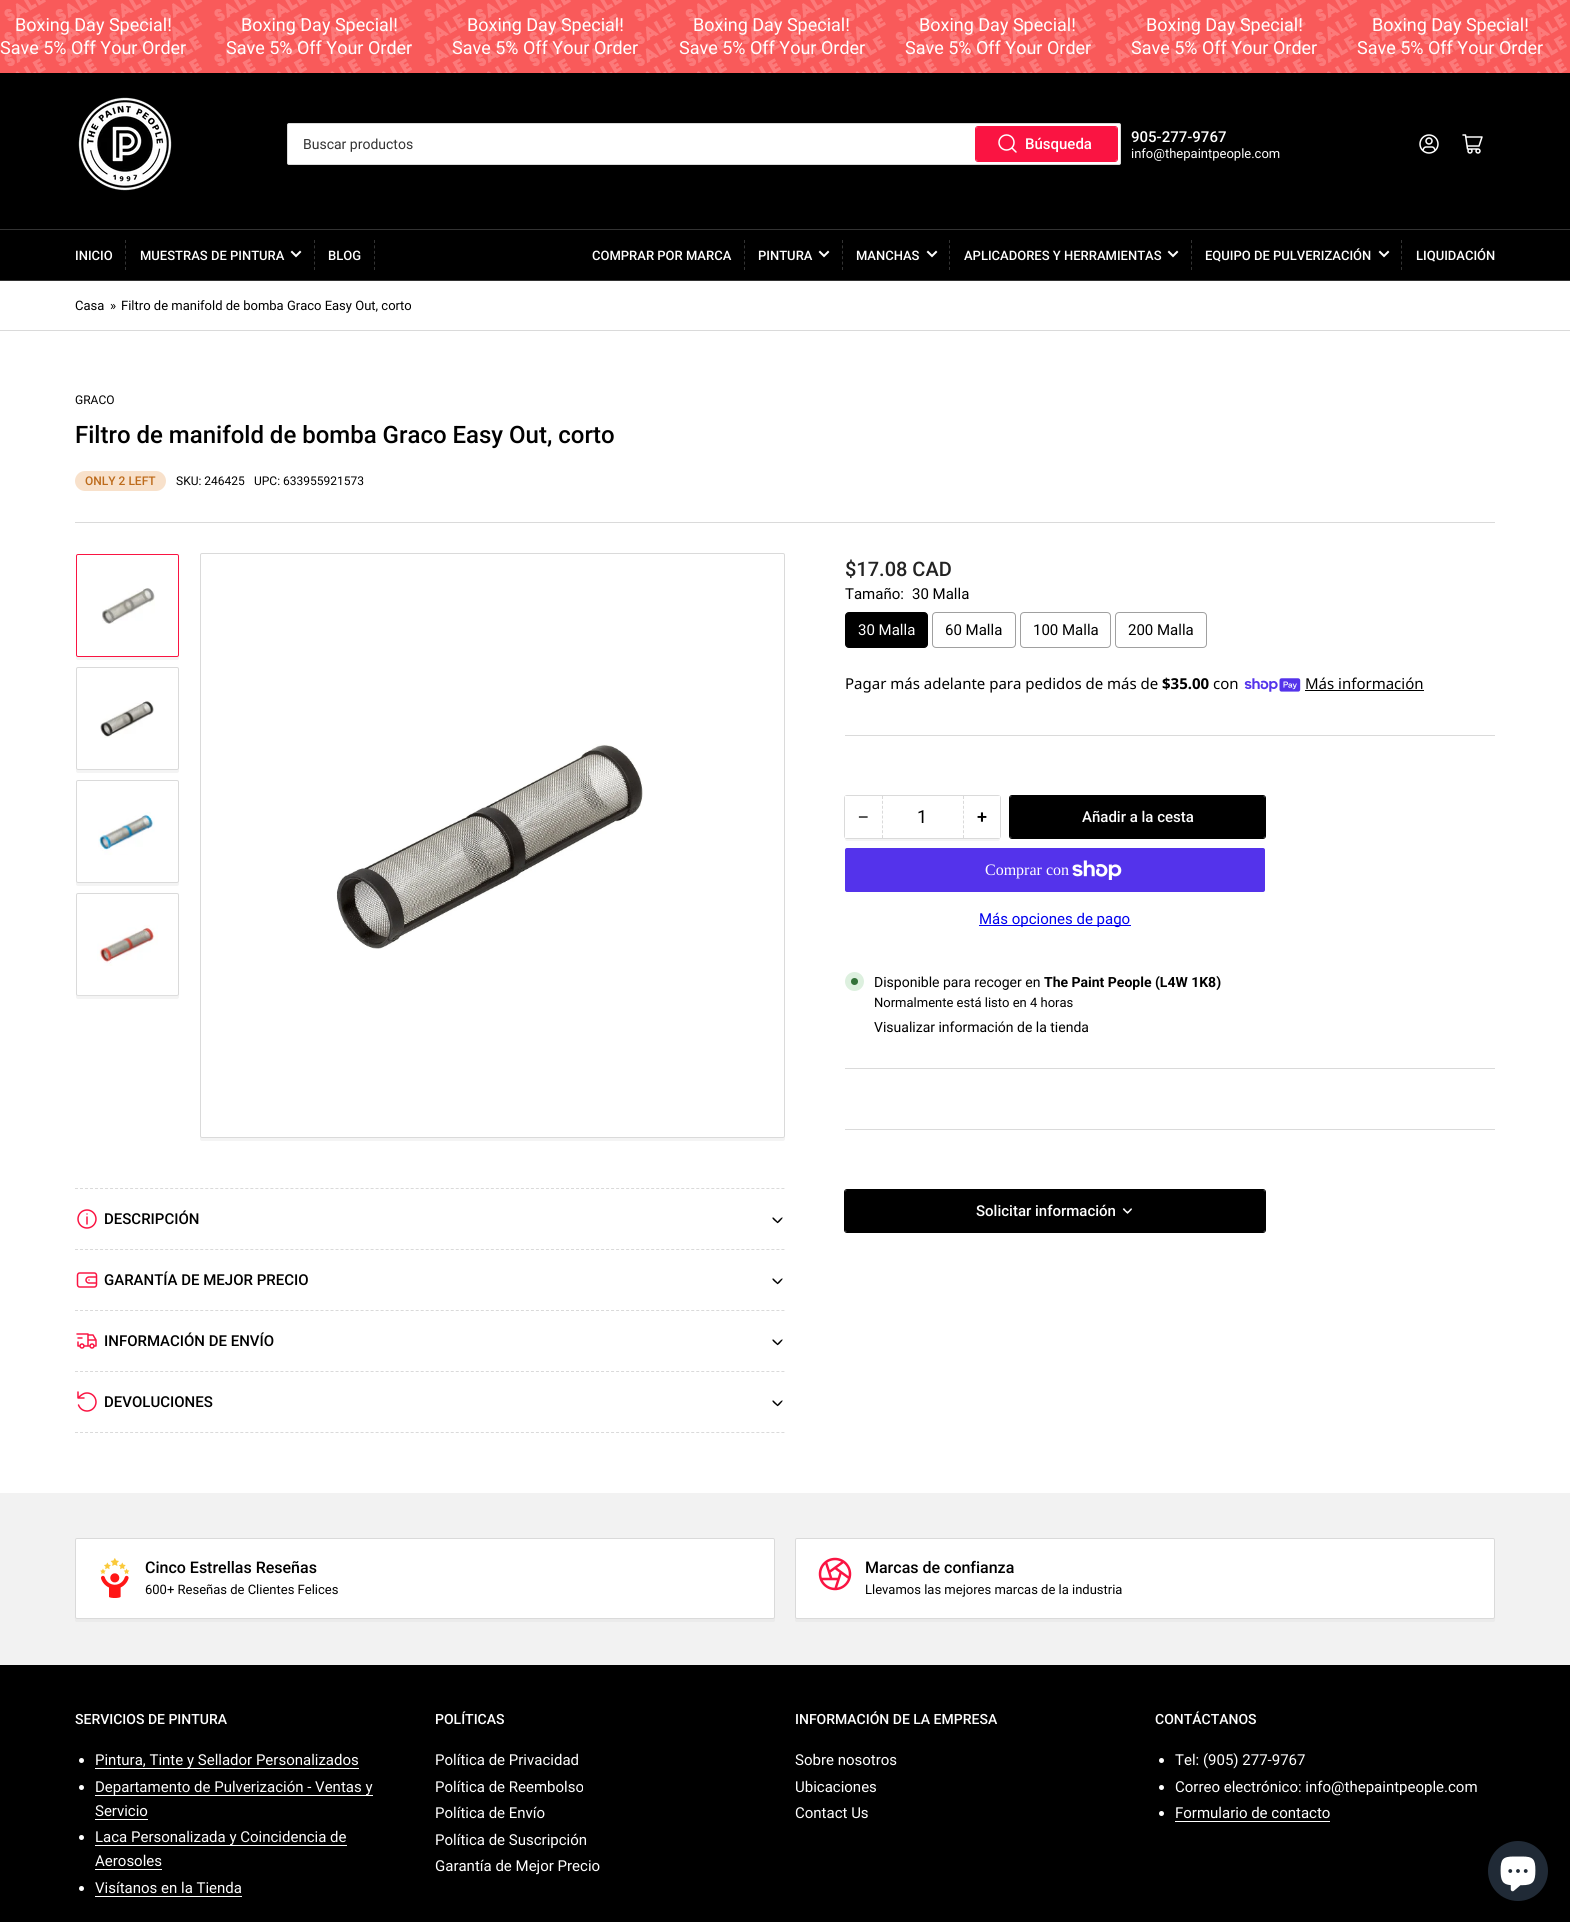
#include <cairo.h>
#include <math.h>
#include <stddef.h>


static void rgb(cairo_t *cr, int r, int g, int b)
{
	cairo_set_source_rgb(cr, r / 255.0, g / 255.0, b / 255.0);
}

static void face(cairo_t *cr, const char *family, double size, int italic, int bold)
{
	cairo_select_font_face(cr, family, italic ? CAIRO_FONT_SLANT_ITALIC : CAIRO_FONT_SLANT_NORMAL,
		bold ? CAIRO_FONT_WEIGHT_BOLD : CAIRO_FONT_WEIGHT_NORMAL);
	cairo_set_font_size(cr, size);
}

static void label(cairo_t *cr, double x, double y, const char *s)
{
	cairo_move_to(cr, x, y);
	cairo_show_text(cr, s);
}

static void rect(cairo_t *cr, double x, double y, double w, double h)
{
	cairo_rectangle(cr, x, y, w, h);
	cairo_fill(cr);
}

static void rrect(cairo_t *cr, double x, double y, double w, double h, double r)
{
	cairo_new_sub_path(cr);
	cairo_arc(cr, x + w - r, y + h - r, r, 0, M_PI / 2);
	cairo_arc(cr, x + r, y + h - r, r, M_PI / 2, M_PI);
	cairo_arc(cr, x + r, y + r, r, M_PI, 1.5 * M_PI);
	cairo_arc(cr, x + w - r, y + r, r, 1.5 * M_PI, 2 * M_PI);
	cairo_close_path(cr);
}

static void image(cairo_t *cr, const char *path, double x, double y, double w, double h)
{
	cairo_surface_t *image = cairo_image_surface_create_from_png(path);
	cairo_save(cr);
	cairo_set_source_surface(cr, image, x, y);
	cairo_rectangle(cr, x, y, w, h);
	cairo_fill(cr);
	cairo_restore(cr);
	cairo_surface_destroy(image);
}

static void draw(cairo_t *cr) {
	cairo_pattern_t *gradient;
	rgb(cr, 255, 255, 255);
	cairo_paint(cr);
	image(cr, "image0.png", 0, 0, 1570, 73);
	face(cr, "Roboto", 18, 0, 0);
	rgb(cr, 255, 255, 255);
	label(cr, 15, 31, "Boxing Day Special!");
	label(cr, 0, 54, "Save 5% Off Your Order");
	label(cr, 241, 31, "Boxing Day Special!");
	label(cr, 226, 54, "Save 5% Off Your Order");
	label(cr, 467, 31, "Boxing Day Special!");
	label(cr, 452, 54, "Save 5% Off Your Order");
	label(cr, 693, 31, "Boxing Day Special!");
	label(cr, 679, 54, "Save 5% Off Your Order");
	label(cr, 919, 31, "Boxing Day Special!");
	label(cr, 905, 54, "Save 5% Off Your Order");
	label(cr, 1146, 31, "Boxing Day Special!");
	label(cr, 1131, 54, "Save 5% Off Your Order");
	label(cr, 1372, 31, "Boxing Day Special!");
	label(cr, 1357, 54, "Save 5% Off Your Order");
	rgb(cr, 0, 0, 0);
	rect(cr, 0, 73, 1570, 156);
	image(cr, "image1.png", 78, 97, 94, 94);
	rgb(cr, 255, 255, 255);
	rrect(cr, 287.5, 123.5, 833, 41, 1.5);
	cairo_fill_preserve(cr);
	rgb(cr, 218, 218, 218);
	cairo_set_line_width(cr, 1);
	cairo_stroke(cr);
	face(cr, "Roboto", 14, 0, 0);
	rgb(cr, 51, 51, 51);
	label(cr, 303, 149, "Buscar productos");
	rrect(cr, 975.5, 126.5, 142, 35, 2.5);
	rgb(cr, 250, 20, 66);
	cairo_stroke(cr);
	rrect(cr, 976, 127, 141, 34, 2);
	cairo_fill(cr);
	image(cr, "image2.png", 998, 134, 19, 19);
	face(cr, "Roboto Medium", 15, 0, 0);
	rgb(cr, 255, 255, 255);
	label(cr, 1025, 149, "Búsqueda");
	label(cr, 1131, 142, "905-277-9767");
	face(cr, "Roboto", 13, 0, 0);
	label(cr, 1131, 158, "info@thepaintpeople.com");
	image(cr, "image3.png", 1419, 134, 20, 20);
	image(cr, "image4.png", 1462, 134, 21, 20);
	rgb(cr, 0, 0, 0);
	rect(cr, 0, 230, 1570, 50);
	rgb(cr, 51, 51, 51);
	rect(cr, 0, 229, 1570, 1);
	rect(cr, 0, 280, 1570, 1);
	face(cr, "Roboto Medium", 13, 0, 0);
	rgb(cr, 255, 255, 255);
	label(cr, 75, 260, "INICIO");
	cairo_new_path(cr);
	cairo_move_to(cr, 125.5, 240);
	cairo_line_to(cr, 125.5, 270);
	rgb(cr, 51, 51, 51);
	cairo_set_dash(cr, (double[]){3, 2.4}, 2, 0);
	cairo_stroke(cr);
	rgb(cr, 255, 255, 255);
	label(cr, 140, 260, "MUESTRAS DE PINTURA");
	cairo_new_path(cr);
	cairo_move_to(cr, 300, 252);
	cairo_line_to(cr, 296, 256);
	cairo_line_to(cr, 292, 252);
	cairo_set_line_width(cr, 2);
	cairo_set_line_cap(cr, CAIRO_LINE_CAP_SQUARE);
	cairo_set_dash(cr, NULL, 0, 0);
	cairo_stroke(cr);
	cairo_new_path(cr);
	cairo_move_to(cr, 314.5, 240);
	cairo_line_to(cr, 314.5, 270);
	rgb(cr, 51, 51, 51);
	cairo_set_line_width(cr, 1);
	cairo_set_line_cap(cr, CAIRO_LINE_CAP_BUTT);
	cairo_set_dash(cr, (double[]){3, 2.4}, 2, 0);
	cairo_stroke(cr);
	rgb(cr, 255, 255, 255);
	label(cr, 328, 260, "BLOG");
	cairo_new_path(cr);
	cairo_move_to(cr, 374.5, 240);
	cairo_line_to(cr, 374.5, 270);
	rgb(cr, 51, 51, 51);
	cairo_stroke(cr);
	rgb(cr, 255, 255, 255);
	label(cr, 592, 260, "COMPRAR POR MARCA");
	cairo_new_path(cr);
	cairo_move_to(cr, 744.5, 240);
	cairo_line_to(cr, 744.5, 270);
	rgb(cr, 51, 51, 51);
	cairo_stroke(cr);
	rgb(cr, 255, 255, 255);
	label(cr, 758, 260, "PINTURA");
	cairo_new_path(cr);
	cairo_move_to(cr, 828, 252);
	cairo_line_to(cr, 824, 256);
	cairo_line_to(cr, 820, 252);
	cairo_set_line_width(cr, 2);
	cairo_set_line_cap(cr, CAIRO_LINE_CAP_SQUARE);
	cairo_set_dash(cr, NULL, 0, 0);
	cairo_stroke(cr);
	cairo_new_path(cr);
	cairo_move_to(cr, 842.5, 240);
	cairo_line_to(cr, 842.5, 270);
	rgb(cr, 51, 51, 51);
	cairo_set_line_width(cr, 1);
	cairo_set_line_cap(cr, CAIRO_LINE_CAP_BUTT);
	cairo_set_dash(cr, (double[]){3, 2.4}, 2, 0);
	cairo_stroke(cr);
	rgb(cr, 255, 255, 255);
	label(cr, 856, 260, "MANCHAS");
	cairo_new_path(cr);
	cairo_move_to(cr, 936, 252);
	cairo_line_to(cr, 932, 256);
	cairo_line_to(cr, 928, 252);
	cairo_set_line_width(cr, 2);
	cairo_set_line_cap(cr, CAIRO_LINE_CAP_SQUARE);
	cairo_set_dash(cr, NULL, 0, 0);
	cairo_stroke(cr);
	cairo_new_path(cr);
	cairo_move_to(cr, 949.5, 240);
	cairo_line_to(cr, 949.5, 270);
	rgb(cr, 51, 51, 51);
	cairo_set_line_width(cr, 1);
	cairo_set_line_cap(cr, CAIRO_LINE_CAP_BUTT);
	cairo_set_dash(cr, (double[]){3, 2.4}, 2, 0);
	cairo_stroke(cr);
	rgb(cr, 255, 255, 255);
	label(cr, 964, 260, "APLICADORES Y HERRAMIENTAS");
	cairo_new_path(cr);
	cairo_move_to(cr, 1177, 252);
	cairo_line_to(cr, 1173, 256);
	cairo_line_to(cr, 1169, 252);
	cairo_set_line_width(cr, 2);
	cairo_set_line_cap(cr, CAIRO_LINE_CAP_SQUARE);
	cairo_set_dash(cr, NULL, 0, 0);
	cairo_stroke(cr);
	cairo_new_path(cr);
	cairo_move_to(cr, 1191.5, 240);
	cairo_line_to(cr, 1191.5, 270);
	rgb(cr, 51, 51, 51);
	cairo_set_line_width(cr, 1);
	cairo_set_line_cap(cr, CAIRO_LINE_CAP_BUTT);
	cairo_set_dash(cr, (double[]){3, 2.4}, 2, 0);
	cairo_stroke(cr);
	rgb(cr, 255, 255, 255);
	label(cr, 1205, 260, "EQUIPO DE PULVERIZACIÓN");
	cairo_new_path(cr);
	cairo_move_to(cr, 1388, 252);
	cairo_line_to(cr, 1384, 256);
	cairo_line_to(cr, 1380, 252);
	cairo_set_line_width(cr, 2);
	cairo_set_line_cap(cr, CAIRO_LINE_CAP_SQUARE);
	cairo_set_dash(cr, NULL, 0, 0);
	cairo_stroke(cr);
	cairo_new_path(cr);
	cairo_move_to(cr, 1401.5, 240);
	cairo_line_to(cr, 1401.5, 270);
	rgb(cr, 51, 51, 51);
	cairo_set_line_width(cr, 1);
	cairo_set_line_cap(cr, CAIRO_LINE_CAP_BUTT);
	cairo_set_dash(cr, (double[]){3, 2.4}, 2, 0);
	cairo_stroke(cr);
	rgb(cr, 255, 255, 255);
	label(cr, 1416, 260, "LIQUIDACIÓN");
	rgb(cr, 218, 218, 218);
	rect(cr, 0, 330, 1570, 1);
	face(cr, "Roboto", 13, 0, 0);
	rgb(cr, 0, 0, 0);
	label(cr, 75, 310, "Casa");
	label(cr, 110, 310, "»");
	label(cr, 121, 310, "Filtro de manifold de bomba Graco Easy Out, corto");
	rgb(cr, 218, 218, 218);
	rect(cr, 75, 522, 1420, 1);
	face(cr, "Roboto", 12, 0, 0);
	rgb(cr, 0, 0, 0);
	label(cr, 75, 404, "GRACO");
	face(cr, "Roboto Medium", 24, 0, 0);
	label(cr, 75, 443, "Filtro de manifold de bomba Graco Easy Out, corto");
	rgb(cr, 248, 225, 203);
	rrect(cr, 75, 471, 91, 20, 10);
	cairo_fill(cr);
	face(cr, "Roboto Medium", 12, 0, 0);
	rgb(cr, 189, 107, 27);
	label(cr, 85, 485, "ONLY 2 LEFT");
	face(cr, "Roboto", 12, 0, 0);
	rgb(cr, 0, 0, 0);
	label(cr, 176, 485, "SKU: 246425");
	label(cr, 254, 485, "UPC: 633955921573");
	rgb(cr, 244, 244, 244);
	cairo_new_path(cr);
	cairo_move_to(cr, 76, 655);
	cairo_line_to(cr, 76, 658);
	cairo_curve_to(cr, 76, 659, 77, 660, 78, 660);
	cairo_line_to(cr, 177, 660);
	cairo_curve_to(cr, 178, 660, 179, 659, 179, 658);
	cairo_line_to(cr, 179, 655);
	cairo_line_to(cr, 179, 656);
	cairo_line_to(cr, 177, 657);
	cairo_line_to(cr, 78, 657);
	cairo_curve_to(cr, 77, 657, 76, 656, 76, 655);
	cairo_close_path(cr);
	cairo_fill(cr);
	rrect(cr, 76.5, 554.5, 102, 102, 1.5);
	rgb(cr, 250, 20, 66);
	cairo_set_dash(cr, NULL, 0, 0);
	cairo_stroke(cr);
	image(cr, "image5.png", 102, 588, 53, 36);
	rgb(cr, 244, 244, 244);
	cairo_new_path(cr);
	cairo_move_to(cr, 76, 768);
	cairo_line_to(cr, 76, 771);
	cairo_curve_to(cr, 76, 772, 77, 773, 78, 773);
	cairo_line_to(cr, 177, 773);
	cairo_curve_to(cr, 178, 773, 179, 772, 179, 771);
	cairo_line_to(cr, 179, 768);
	cairo_line_to(cr, 179, 769);
	cairo_line_to(cr, 177, 770);
	cairo_line_to(cr, 78, 770);
	cairo_curve_to(cr, 77, 770, 76, 769, 76, 768);
	cairo_close_path(cr);
	cairo_fill(cr);
	rrect(cr, 76.5, 667.5, 102, 102, 1.5);
	rgb(cr, 218, 218, 218);
	cairo_stroke(cr);
	image(cr, "image6.png", 100, 700, 54, 38);
	rgb(cr, 244, 244, 244);
	cairo_new_path(cr);
	cairo_move_to(cr, 76, 881);
	cairo_line_to(cr, 76, 884);
	cairo_curve_to(cr, 76, 885, 77, 886, 78, 886);
	cairo_line_to(cr, 177, 886);
	cairo_curve_to(cr, 178, 886, 179, 885, 179, 884);
	cairo_line_to(cr, 179, 881);
	cairo_line_to(cr, 179, 882);
	cairo_line_to(cr, 177, 883);
	cairo_line_to(cr, 78, 883);
	cairo_curve_to(cr, 77, 883, 76, 882, 76, 881);
	cairo_close_path(cr);
	cairo_fill(cr);
	rrect(cr, 76.5, 780.5, 102, 102, 1.5);
	rgb(cr, 218, 218, 218);
	cairo_stroke(cr);
	image(cr, "image7.png", 98, 812, 57, 43);
	rgb(cr, 244, 244, 244);
	cairo_new_path(cr);
	cairo_move_to(cr, 76, 994);
	cairo_line_to(cr, 76, 997);
	cairo_curve_to(cr, 76, 998, 77, 999, 78, 999);
	cairo_line_to(cr, 177, 999);
	cairo_curve_to(cr, 178, 999, 179, 998, 179, 997);
	cairo_line_to(cr, 179, 994);
	cairo_line_to(cr, 179, 995);
	cairo_line_to(cr, 177, 996);
	cairo_line_to(cr, 78, 996);
	cairo_curve_to(cr, 77, 996, 76, 995, 76, 994);
	cairo_close_path(cr);
	cairo_fill(cr);
	rrect(cr, 76.5, 893.5, 102, 102, 1.5);
	rgb(cr, 218, 218, 218);
	cairo_stroke(cr);
	image(cr, "image8.png", 97, 925, 61, 41);
	gradient = cairo_pattern_create_linear(128, 1027, 128, 992);
	cairo_pattern_add_color_stop_rgba(gradient, 0, 1, 1, 1, 1);
	cairo_pattern_add_color_stop_rgba(gradient, 1, 1, 1, 1, 0);
	cairo_set_source(cr, gradient);
	cairo_pattern_destroy(gradient);
	rect(cr, 77, 995, 101, 1);
	rgb(cr, 244, 244, 244);
	cairo_new_path(cr);
	cairo_move_to(cr, 200, 1136);
	cairo_line_to(cr, 200, 1139);
	cairo_curve_to(cr, 200, 1140, 201, 1141, 202, 1141);
	cairo_line_to(cr, 783, 1141);
	cairo_curve_to(cr, 784, 1141, 785, 1140, 785, 1139);
	cairo_line_to(cr, 785, 1136);
	cairo_curve_to(cr, 785, 1137, 784, 1138, 783, 1138);
	cairo_line_to(cr, 202, 1138);
	cairo_curve_to(cr, 201, 1138, 200, 1137, 200, 1136);
	cairo_close_path(cr);
	cairo_fill(cr);
	rrect(cr, 200.5, 553.5, 584, 584, 1.5);
	rgb(cr, 218, 218, 218);
	cairo_stroke(cr);
	image(cr, "image9.png", 336, 744, 307, 205);
	face(cr, "Roboto Medium", 20, 0, 0);
	rgb(cr, 35, 35, 35);
	label(cr, 845, 576, "$17.08 CAD");
	face(cr, "Roboto", 15, 0, 0);
	rgb(cr, 0, 0, 0);
	label(cr, 845, 599, "Tamaño:");
	label(cr, 912, 599, "30 Malla");
	rrect(cr, 845.5, 612.5, 82, 35, 3.5);
	cairo_fill_preserve(cr);
	cairo_stroke(cr);
	rgb(cr, 255, 255, 255);
	label(cr, 858, 635, "30 Malla");
	rrect(cr, 932.5, 612.5, 83, 35, 3.5);
	rgb(cr, 160, 160, 160);
	cairo_stroke(cr);
	rgb(cr, 0, 0, 0);
	label(cr, 945, 635, "60 Malla");
	rrect(cr, 1020.5, 612.5, 90, 35, 3.5);
	rgb(cr, 160, 160, 160);
	cairo_stroke(cr);
	rgb(cr, 0, 0, 0);
	label(cr, 1033, 635, "100 Malla");
	rrect(cr, 1115.5, 612.5, 91, 35, 3.5);
	rgb(cr, 160, 160, 160);
	cairo_stroke(cr);
	rgb(cr, 0, 0, 0);
	label(cr, 1128, 635, "200 Malla");
	face(cr, "Noto Sans", 15, 0, 0);
	label(cr, 845, 689, "Pagar más adelante para pedidos de más de");
	face(cr, "Noto Sans", 15, 0, 1);
	label(cr, 1162, 689, "$35.00");
	face(cr, "Noto Sans", 15, 0, 0);
	label(cr, 1213, 689, "con");
	image(cr, "image10.png", 1244, 678, 57, 14);
	label(cr, 1305, 689, "Más información");
	rect(cr, 1305, 690, 119, 1);
	rgb(cr, 218, 218, 218);
	rect(cr, 845, 735, 650, 1);
	rgb(cr, 244, 244, 244);
	cairo_new_path(cr);
	cairo_move_to(cr, 845, 836);
	cairo_line_to(cr, 845, 839);
	cairo_curve_to(cr, 845, 840, 846, 841, 847, 841);
	cairo_line_to(cr, 998, 841);
	cairo_curve_to(cr, 999, 841, 1000, 840, 1000, 839);
	cairo_line_to(cr, 1000, 836);
	cairo_curve_to(cr, 1000, 837, 999, 838, 998, 838);
	cairo_line_to(cr, 847, 838);
	cairo_curve_to(cr, 846, 838, 845, 837, 845, 836);
	cairo_close_path(cr);
	cairo_fill(cr);
	rrect(cr, 844.5, 795.5, 156, 43, 2.5);
	rgb(cr, 218, 218, 218);
	cairo_stroke(cr);
	rgb(cr, 255, 255, 255);
	rect(cr, 845, 796, 2, 42);
	face(cr, "Liberation Sans", 18, 0, 0);
	rgb(cr, 0, 0, 0);
	label(cr, 858, 823, "−");
	cairo_new_path(cr);
	cairo_move_to(cr, 963.5, 796);
	cairo_line_to(cr, 963.5, 838);
	rgb(cr, 218, 218, 218);
	cairo_set_dash(cr, (double[]){3, 1.88}, 2, 0);
	cairo_stroke(cr);
	cairo_new_path(cr);
	cairo_move_to(cr, 882.5, 796);
	cairo_line_to(cr, 882.5, 838);
	cairo_stroke(cr);
	face(cr, "Roboto", 18, 0, 0);
	rgb(cr, 0, 0, 0);
	label(cr, 917, 823, "1");
	rgb(cr, 255, 255, 255);
	rect(cr, 998, 796, 2, 42);
	face(cr, "Roboto Medium", 18, 0, 0);
	rgb(cr, 0, 0, 0);
	label(cr, 977, 823, "+");
	rrect(cr, 1009.5, 795.5, 256, 43, 2.5);
	cairo_set_dash(cr, NULL, 0, 0);
	cairo_stroke(cr);
	rrect(cr, 1010, 796, 255, 42, 2);
	cairo_fill(cr);
	face(cr, "Roboto Medium", 15, 0, 0);
	rgb(cr, 255, 255, 255);
	label(cr, 1082, 822, "Añadir a la cesta");
	rgb(cr, 84, 51, 235);
	rrect(cr, 845, 848, 420, 44, 2);
	cairo_fill(cr);
	face(cr, "Liberation Serif", 16, 0, 0);
	rgb(cr, 255, 255, 255);
	label(cr, 985, 875, "Comprar con");
	image(cr, "image11.png", 1072, 860, 50, 20);
	rgb(cr, 0, 0, 238);
	rect(cr, 979, 925, 152, 1);
	face(cr, "Roboto", 15, 0, 0);
	label(cr, 979, 924, "Más opciones de pago");
	rgb(cr, 221, 240, 223);
	cairo_new_path(cr);
	cairo_arc(cr, 854.5, 981.5, 9.5, 0, 2 * M_PI);
	cairo_fill(cr);
	rgb(cr, 51, 114, 57);
	cairo_arc(cr, 854.5, 981.5, 3.5, 0, 2 * M_PI);
	cairo_fill(cr);
	face(cr, "Roboto", 14, 0, 0);
	rgb(cr, 0, 0, 0);
	label(cr, 874, 987, "Disponible para recoger en");
	face(cr, "Roboto", 14, 0, 1);
	label(cr, 1044, 987, "The Paint People (L4W 1K8)");
	face(cr, "Roboto", 13, 0, 0);
	label(cr, 874, 1007, "Normalmente está listo en 4 horas");
	face(cr, "Roboto", 14, 0, 0);
	label(cr, 874, 1032, "Visualizar información de la tienda");
	rgb(cr, 218, 218, 218);
	rect(cr, 845, 1068, 650, 1);
	rect(cr, 845, 1129, 650, 1);
	rrect(cr, 844.5, 1189.5, 421, 43, 2.5);
	rgb(cr, 0, 0, 0);
	cairo_stroke(cr);
	rrect(cr, 845, 1190, 420, 42, 2);
	cairo_fill(cr);
	face(cr, "Roboto Medium", 15, 0, 0);
	rgb(cr, 255, 255, 255);
	label(cr, 976, 1216, "Solicitar información");
	cairo_new_path(cr);
	cairo_move_to(cr, 1124.5, 1208.5);
	cairo_line_to(cr, 1126, 1210.5);
	cairo_curve_to(cr, 1126.5, 1211, 1128.5, 1212, 1128, 1213);
	cairo_curve_to(cr, 1128, 1215, 1124.5, 1211, 1124.5, 1211);
	cairo_line_to(cr, 1123, 1209.5);
	cairo_curve_to(cr, 1122.5, 1208.5, 1123.5, 1208, 1124.5, 1208.5);
	cairo_close_path(cr);
	cairo_fill(cr);
	cairo_new_path(cr);
	cairo_move_to(cr, 1127, 1212);
	cairo_line_to(cr, 1129, 1210.5);
	cairo_curve_to(cr, 1129.5, 1210, 1130.5, 1208, 1131.5, 1208.5);
	cairo_curve_to(cr, 1133.5, 1208.5, 1129.5, 1212, 1129.5, 1212);
	cairo_line_to(cr, 1128, 1213.5);
	cairo_curve_to(cr, 1127, 1213.5, 1126.5, 1213, 1127, 1212);
	cairo_close_path(cr);
	cairo_fill(cr);
	cairo_new_path(cr);
	cairo_move_to(cr, 75, 1188.5);
	cairo_line_to(cr, 785, 1188.5);
	rgb(cr, 218, 218, 218);
	cairo_set_dash(cr, (double[]){3, 2.01}, 2, 0);
	cairo_stroke(cr);
	cairo_new_path(cr);
	cairo_move_to(cr, 75, 1249.5);
	cairo_line_to(cr, 785, 1249.5);
	cairo_stroke(cr);
	image(cr, "image12.png", 77, 1209, 20, 20);
	rgb(cr, 0, 0, 0);
	label(cr, 104, 1224, "DESCRIPCIÓN");
	cairo_new_path(cr);
	cairo_move_to(cr, 773.5, 1217.5);
	cairo_line_to(cr, 777, 1221);
	cairo_curve_to(cr, 779, 1223, 778, 1224, 776, 1222);
	cairo_curve_to(cr, 775.5, 1221.5, 771.5, 1218.5, 772.5, 1217.5);
	cairo_close_path(cr);
	cairo_fill(cr);
	cairo_new_path(cr);
	cairo_move_to(cr, 777, 1222);
	cairo_line_to(cr, 780.5, 1218.5);
	cairo_curve_to(cr, 782.5, 1216.5, 783.5, 1217.5, 781.5, 1219.5);
	cairo_curve_to(cr, 781, 1220, 778, 1224, 777, 1223);
	cairo_close_path(cr);
	cairo_fill(cr);
	cairo_new_path(cr);
	cairo_move_to(cr, 75, 1310.5);
	cairo_line_to(cr, 785, 1310.5);
	rgb(cr, 218, 218, 218);
	cairo_stroke(cr);
	image(cr, "image13.png", 76, 1272, 22, 16);
	rgb(cr, 0, 0, 0);
	label(cr, 104, 1285, "GARANTÍA DE MEJOR PRECIO");
	cairo_new_path(cr);
	cairo_move_to(cr, 773.5, 1278.5);
	cairo_line_to(cr, 777, 1282);
	cairo_curve_to(cr, 779, 1284, 778, 1285, 776, 1283);
	cairo_curve_to(cr, 775.5, 1282.5, 771.5, 1279.5, 772.5, 1278.5);
	cairo_close_path(cr);
	cairo_fill(cr);
	cairo_new_path(cr);
	cairo_move_to(cr, 777, 1283);
	cairo_line_to(cr, 780.5, 1279.5);
	cairo_curve_to(cr, 782.5, 1277.5, 783.5, 1278.5, 781.5, 1280.5);
	cairo_curve_to(cr, 781, 1281, 778, 1285, 777, 1284);
	cairo_close_path(cr);
	cairo_fill(cr);
	cairo_new_path(cr);
	cairo_move_to(cr, 75, 1371.5);
	cairo_line_to(cr, 785, 1371.5);
	rgb(cr, 218, 218, 218);
	cairo_stroke(cr);
	image(cr, "image14.png", 76, 1333, 21, 16);
	rgb(cr, 0, 0, 0);
	label(cr, 104, 1346, "INFORMACIÓN DE ENVÍO");
	cairo_new_path(cr);
	cairo_move_to(cr, 773.5, 1339.5);
	cairo_line_to(cr, 777, 1343);
	cairo_curve_to(cr, 779, 1345, 778, 1346, 776, 1344);
	cairo_curve_to(cr, 775.5, 1343.5, 771.5, 1340.5, 772.5, 1339.5);
	cairo_close_path(cr);
	cairo_fill(cr);
	cairo_new_path(cr);
	cairo_move_to(cr, 777, 1344);
	cairo_line_to(cr, 780.5, 1340.5);
	cairo_curve_to(cr, 782.5, 1338.5, 783.5, 1339.5, 781.5, 1341.5);
	cairo_curve_to(cr, 781, 1342, 778, 1346, 777, 1345);
	cairo_close_path(cr);
	cairo_fill(cr);
	cairo_new_path(cr);
	cairo_move_to(cr, 75, 1432.5);
	cairo_line_to(cr, 785, 1432.5);
	rgb(cr, 218, 218, 218);
	cairo_stroke(cr);
	image(cr, "image15.png", 77, 1391, 20, 21);
	rgb(cr, 0, 0, 0);
	label(cr, 104, 1407, "DEVOLUCIONES");
	cairo_new_path(cr);
	cairo_move_to(cr, 773.5, 1400.5);
	cairo_line_to(cr, 777, 1404);
	cairo_curve_to(cr, 779, 1406, 778, 1407, 776, 1405);
	cairo_curve_to(cr, 775.5, 1404.5, 771.5, 1401.5, 772.5, 1400.5);
	cairo_close_path(cr);
	cairo_fill(cr);
	cairo_new_path(cr);
	cairo_move_to(cr, 777, 1405);
	cairo_line_to(cr, 780.5, 1401.5);
	cairo_curve_to(cr, 782.5, 1399.5, 783.5, 1400.5, 781.5, 1402.5);
	cairo_curve_to(cr, 781, 1403, 778, 1407, 777, 1406);
	cairo_close_path(cr);
	cairo_fill(cr);
	rgb(cr, 242, 242, 242);
	rect(cr, 0, 1493, 1570, 172);
	rgb(cr, 235, 235, 235);
	cairo_new_path(cr);
	cairo_move_to(cr, 75, 1617);
	cairo_curve_to(cr, 75, 1619, 74, 1622, 77, 1622);
	cairo_line_to(cr, 774, 1622);
	cairo_line_to(cr, 775, 1621);
	cairo_line_to(cr, 775, 1617);
	cairo_curve_to(cr, 775, 1618, 774, 1619, 773, 1619);
	cairo_line_to(cr, 77, 1619);
	cairo_curve_to(cr, 76, 1619, 75, 1618, 75, 1617);
	cairo_close_path(cr);
	cairo_fill(cr);
	rgb(cr, 255, 255, 255);
	rrect(cr, 75.5, 1538.5, 699, 80, 1.5);
	cairo_fill_preserve(cr);
	rgb(cr, 218, 218, 218);
	cairo_set_dash(cr, NULL, 0, 0);
	cairo_stroke(cr);
	image(cr, "image16.png", 100, 1558, 30, 40);
	face(cr, "Roboto Medium", 16, 0, 0);
	rgb(cr, 0, 0, 0);
	label(cr, 145, 1573, "Cinco Estrellas Reseñas");
	face(cr, "Roboto", 13, 0, 0);
	label(cr, 145, 1594, "600+ Reseñas de Clientes Felices");
	rgb(cr, 235, 235, 235);
	cairo_new_path(cr);
	cairo_move_to(cr, 795, 1617);
	cairo_line_to(cr, 795, 1621);
	cairo_line_to(cr, 796, 1622);
	cairo_line_to(cr, 1493, 1622);
	cairo_curve_to(cr, 1496, 1622, 1495, 1619, 1495, 1617);
	cairo_curve_to(cr, 1495, 1618, 1494, 1619, 1493, 1619);
	cairo_line_to(cr, 797, 1619);
	cairo_curve_to(cr, 796, 1619, 795, 1618, 795, 1617);
	cairo_close_path(cr);
	cairo_fill(cr);
	rgb(cr, 255, 255, 255);
	rrect(cr, 795.5, 1538.5, 699, 80, 1.5);
	cairo_fill_preserve(cr);
	rgb(cr, 218, 218, 218);
	cairo_stroke(cr);
	image(cr, "image17.png", 818, 1557, 34, 34);
	face(cr, "Roboto Medium", 16, 0, 0);
	rgb(cr, 0, 0, 0);
	label(cr, 865, 1573, "Marcas de confianza");
	face(cr, "Roboto", 13, 0, 0);
	label(cr, 865, 1594, "Llevamos las mejores marcas de la industria");
	rect(cr, 0, 1665, 1570, 257);
	face(cr, "Roboto Medium", 14, 0, 0);
	rgb(cr, 255, 255, 255);
	label(cr, 75, 1724, "SERVICIOS DE PINTURA");
	cairo_new_path(cr);
	cairo_arc(cr, 81.5, 1760.5, 2.5, 0, 2 * M_PI);
	cairo_fill(cr);
	rect(cr, 95, 1768, 264, 1);
	face(cr, "Roboto", 15, 0, 0);
	label(cr, 95, 1765, "Pintura, Tinte y Sellador Personalizados");
	cairo_new_path(cr);
	cairo_arc(cr, 81.5, 1787.5, 2.5, 0, 2 * M_PI);
	cairo_fill(cr);
	rect(cr, 95, 1795, 278, 1);
	label(cr, 95, 1792, "Departamento de Pulverización - Ventas y");
	label(cr, 95, 1816, "Servicio");
	rect(cr, 95, 1819, 53, 1);
	cairo_new_path(cr);
	cairo_arc(cr, 81.5, 1837.5, 2.5, 0, 2 * M_PI);
	cairo_fill(cr);
	rect(cr, 95, 1845, 252, 1);
	label(cr, 95, 1842, "Laca Personalizada y Coincidencia de");
	label(cr, 95, 1866, "Aerosoles");
	rect(cr, 95, 1869, 67, 1);
	cairo_new_path(cr);
	cairo_arc(cr, 81.5, 1888.5, 2.5, 0, 2 * M_PI);
	cairo_fill(cr);
	label(cr, 95, 1893, "Visítanos en la Tienda");
	rect(cr, 95, 1896, 147, 1);
	face(cr, "Roboto Medium", 14, 0, 0);
	label(cr, 435, 1724, "POLÍTICAS");
	face(cr, "Roboto", 15, 0, 0);
	label(cr, 435, 1765, "Política de Privacidad");
	label(cr, 435, 1792, "Política de Reembolso");
	label(cr, 435, 1818, "Política de Envío");
	label(cr, 435, 1845, "Política de Suscripción");
	label(cr, 435, 1871, "Garantía de Mejor Precio");
	face(cr, "Roboto Medium", 14, 0, 0);
	label(cr, 795, 1724, "INFORMACIÓN DE LA EMPRESA");
	face(cr, "Roboto", 15, 0, 0);
	label(cr, 795, 1765, "Sobre nosotros");
	label(cr, 795, 1792, "Ubicaciones");
	label(cr, 795, 1818, "Contact Us");
	face(cr, "Roboto Medium", 14, 0, 0);
	label(cr, 1155, 1724, "CONTÁCTANOS");
	cairo_new_path(cr);
	cairo_arc(cr, 1161.5, 1760.5, 2.5, 0, 2 * M_PI);
	cairo_fill(cr);
	face(cr, "Roboto", 15, 0, 0);
	label(cr, 1175, 1765, "Tel: (905) 277-9767");
	cairo_new_path(cr);
	cairo_arc(cr, 1161.5, 1787.5, 2.5, 0, 2 * M_PI);
	cairo_fill(cr);
	label(cr, 1175, 1792, "Correo electrónico: info@thepaintpeople.com");
	cairo_new_path(cr);
	cairo_arc(cr, 1161.5, 1813.5, 2.5, 0, 2 * M_PI);
	cairo_fill(cr);
	label(cr, 1175, 1818, "Formulario de contacto");
	rect(cr, 1175, 1821, 155, 1);
	rgb(cr, 32, 42, 54);
	cairo_new_path(cr);
	cairo_arc(cr, 1518, 1871, 30, 0, 2 * M_PI);
	cairo_fill(cr);
	image(cr, "image18.png", 1500, 1856, 36, 36);
}

int main(void) {
	cairo_surface_t *surface = cairo_image_surface_create(CAIRO_FORMAT_RGB24, 1570, 1922);
	cairo_t *cr = cairo_create(surface);
	cairo_font_options_t *options = cairo_font_options_create();
	cairo_font_options_set_hint_metrics(options, CAIRO_HINT_METRICS_OFF);
	cairo_font_options_set_hint_style(options, CAIRO_HINT_STYLE_NONE);
	cairo_set_font_options(cr, options);
	cairo_set_miter_limit(cr, 4);
	draw(cr);
	cairo_surface_write_to_png(surface, "render.png");
	cairo_font_options_destroy(options);
	cairo_destroy(cr);
	cairo_surface_destroy(surface);
	return 0;
}
